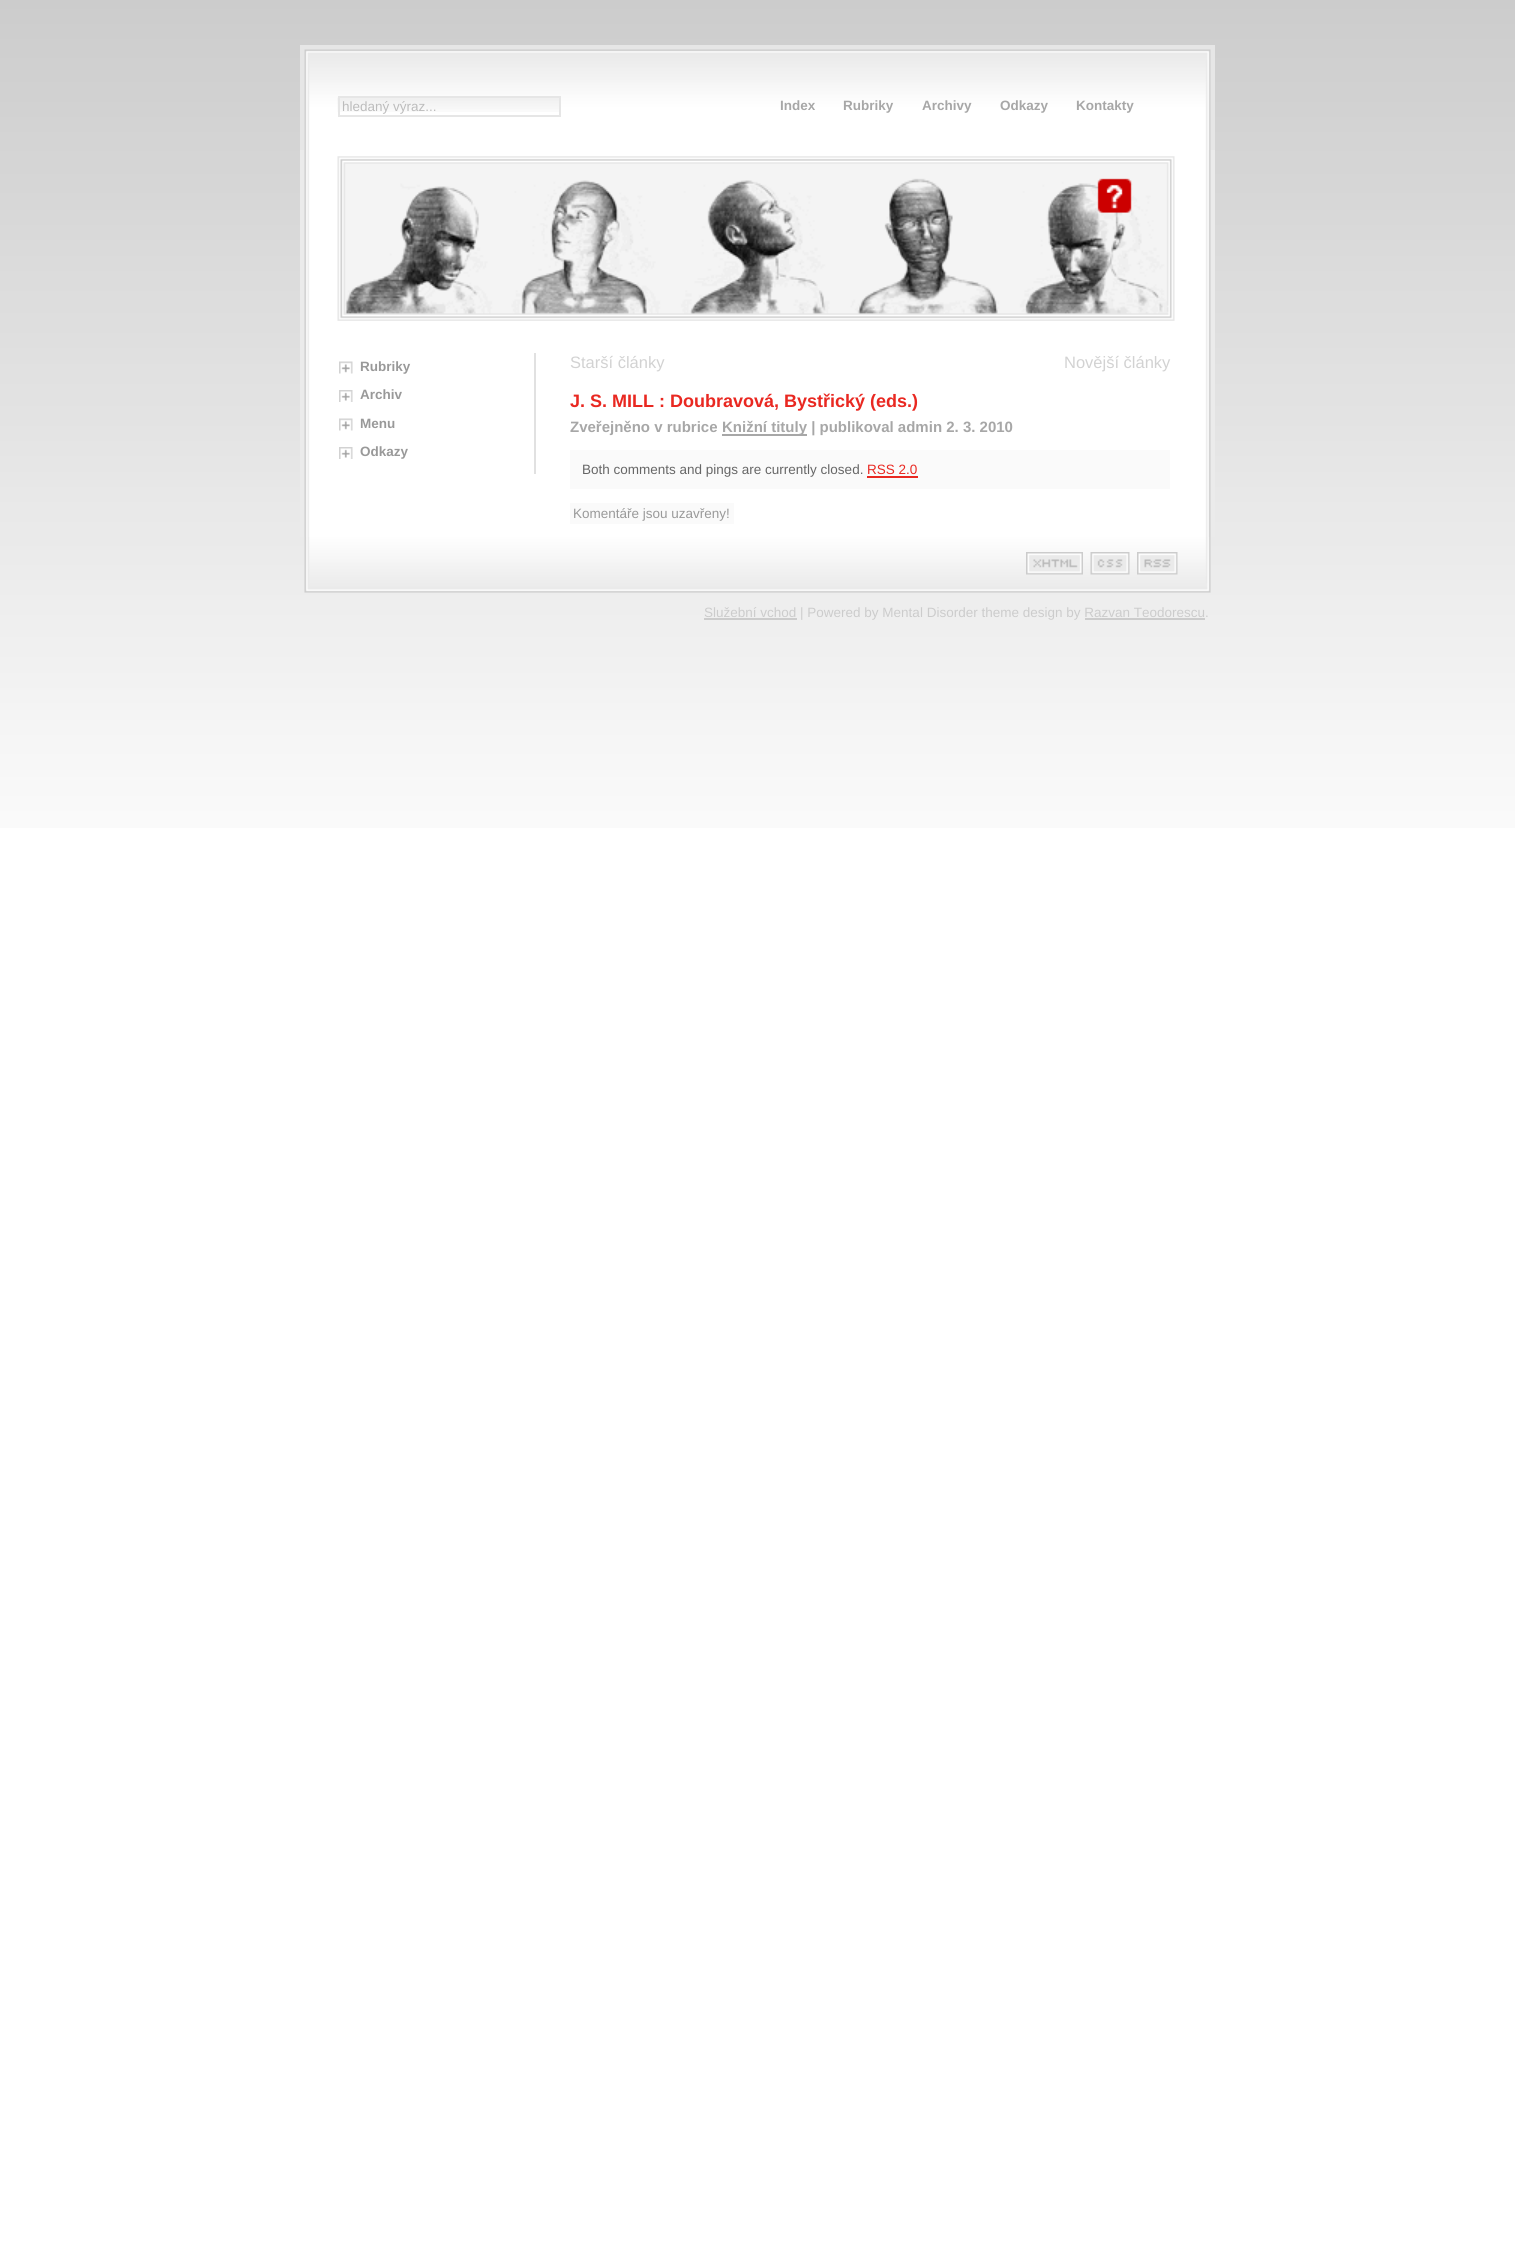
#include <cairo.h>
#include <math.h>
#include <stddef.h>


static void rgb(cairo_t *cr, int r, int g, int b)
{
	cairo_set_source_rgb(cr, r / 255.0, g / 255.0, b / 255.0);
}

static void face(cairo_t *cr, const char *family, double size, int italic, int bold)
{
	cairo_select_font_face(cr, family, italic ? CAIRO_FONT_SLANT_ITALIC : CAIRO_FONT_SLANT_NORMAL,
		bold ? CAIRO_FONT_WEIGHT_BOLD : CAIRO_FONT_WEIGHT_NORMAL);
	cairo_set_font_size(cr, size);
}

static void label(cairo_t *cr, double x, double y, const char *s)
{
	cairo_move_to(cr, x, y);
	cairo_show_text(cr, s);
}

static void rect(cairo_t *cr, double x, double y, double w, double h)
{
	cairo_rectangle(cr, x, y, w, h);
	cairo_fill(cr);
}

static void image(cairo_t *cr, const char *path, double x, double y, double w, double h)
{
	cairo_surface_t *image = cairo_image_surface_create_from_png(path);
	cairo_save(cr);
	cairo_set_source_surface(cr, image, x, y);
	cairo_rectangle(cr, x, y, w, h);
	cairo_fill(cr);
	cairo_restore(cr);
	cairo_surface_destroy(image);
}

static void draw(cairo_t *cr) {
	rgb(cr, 255, 255, 255);
	cairo_paint(cr);
	image(cr, "image0.png", 0, 0, 1515, 828);
	image(cr, "image1.png", 300, 45, 915, 105);
	image(cr, "image2.png", 337, 97, 222, 15);
	cairo_rectangle(cr, 339, 97, 221, 19);
	rgb(cr, 230, 230, 230);
	cairo_stroke(cr);
	face(cr, "Liberation Sans", 13.5, 0, 0);
	rgb(cr, 188, 188, 188);
	label(cr, 342, 111, "hledaný výraz...");
	face(cr, "Liberation Sans", 13.5, 0, 1);
	rgb(cr, 167, 167, 167);
	label(cr, 780, 110, "Index");
	label(cr, 843, 110, "Rubriky");
	label(cr, 922, 110, "Archivy");
	label(cr, 1000, 110, "Odkazy");
	label(cr, 1076, 110, "Kontakty");
	image(cr, "image3.png", 300, 150, 915, 387);
	image(cr, "image4.png", 337, 156, 838, 165);
	rgb(cr, 225, 225, 225);
	rect(cr, 534, 353, 2, 121);
	image(cr, "image5.png", 339, 361, 14, 13);
	rgb(cr, 153, 153, 153);
	label(cr, 360, 371, "Rubriky");
	image(cr, "image6.png", 339, 390, 14, 12);
	label(cr, 360, 399, "Archiv");
	image(cr, "image5.png", 339, 418, 14, 13);
	label(cr, 360, 428, "Menu");
	image(cr, "image6.png", 339, 447, 14, 12);
	label(cr, 360, 456, "Odkazy");
	face(cr, "Liberation Sans", 16.5, 0, 0);
	rgb(cr, 210, 210, 210);
	label(cr, 570, 368, "Starší články");
	label(cr, 1064, 368, "Novější články");
	face(cr, "Liberation Sans", 18, 0, 1);
	rgb(cr, 233, 40, 33);
	label(cr, 570, 407, "J. S. MILL : Doubravová, Bystřický (eds.)");
	face(cr, "Liberation Sans", 15, 0, 1);
	rgb(cr, 167, 167, 167);
	label(cr, 570, 432, "Zveřejněno v rubrice");
	rect(cr, 722, 434, 85, 2);
	label(cr, 722, 432, "Knižní tituly | publikoval admin 2. 3. 2010");
	rgb(cr, 250, 250, 250);
	rect(cr, 570, 450, 600, 39);
	face(cr, "Liberation Sans", 13.5, 0, 0);
	rgb(cr, 102, 102, 102);
	label(cr, 582, 474, "Both comments and pings are currently closed.");
	rgb(cr, 233, 40, 33);
	label(cr, 867, 474, "RSS 2.0");
	rect(cr, 867, 476, 51, 2);
	rgb(cr, 250, 250, 250);
	rect(cr, 570, 503, 164, 21);
	rgb(cr, 153, 153, 153);
	label(cr, 573, 518, "Komentáře jsou uzavřeny!");
	image(cr, "image7.png", 304, 537, 907, 45);
	image(cr, "image8.png", 1026, 552, 57, 23);
	image(cr, "image9.png", 1090, 552, 40, 23);
	image(cr, "image10.png", 1137, 552, 41, 23);
	image(cr, "image11.png", 304, 582, 907, 11);
	rgb(cr, 204, 204, 204);
	rect(cr, 704, 618, 93, 2);
	label(cr, 704, 617, "Služební vchod | Powered by Mental Disorder theme design by Razvan Teodorescu.");
	rect(cr, 1085, 618, 120, 2);
}

int main(void) {
	cairo_surface_t *surface = cairo_image_surface_create(CAIRO_FORMAT_RGB24, 1515, 2259);
	cairo_t *cr = cairo_create(surface);
	cairo_font_options_t *options = cairo_font_options_create();
	cairo_font_options_set_hint_metrics(options, CAIRO_HINT_METRICS_OFF);
	cairo_font_options_set_hint_style(options, CAIRO_HINT_STYLE_NONE);
	cairo_set_font_options(cr, options);
	cairo_set_miter_limit(cr, 4);
	draw(cr);
	cairo_surface_write_to_png(surface, "render.png");
	cairo_font_options_destroy(options);
	cairo_destroy(cr);
	cairo_surface_destroy(surface);
	return 0;
}
